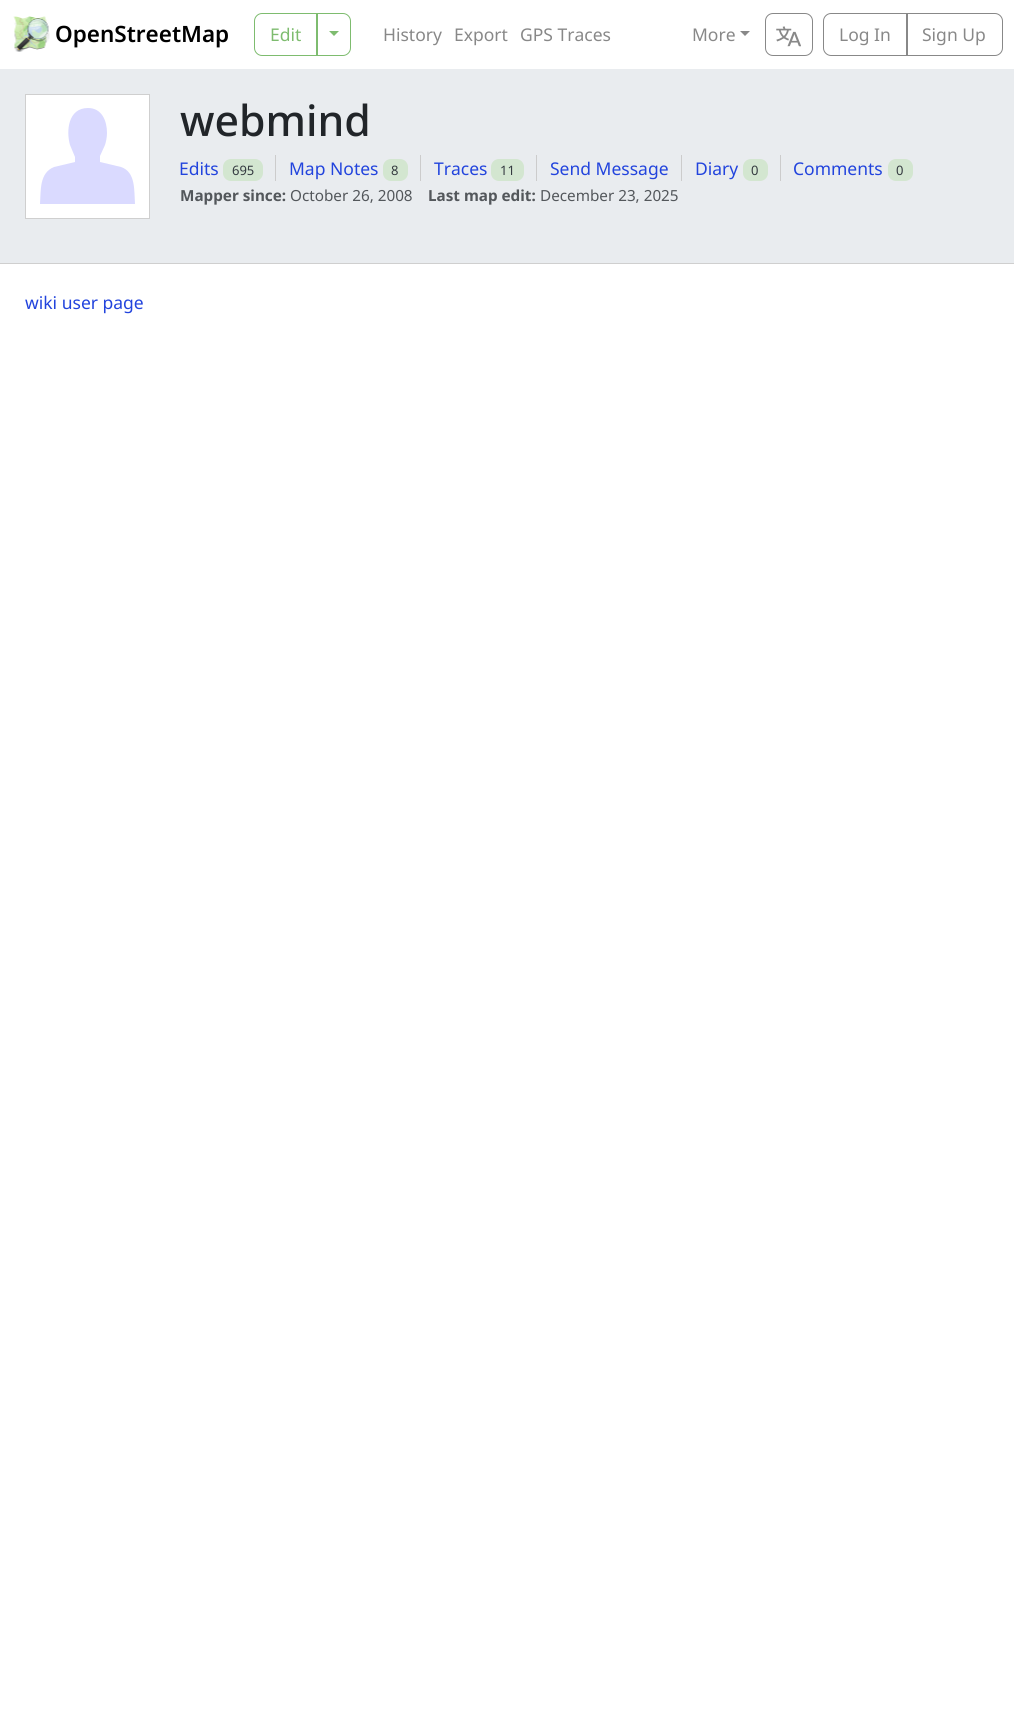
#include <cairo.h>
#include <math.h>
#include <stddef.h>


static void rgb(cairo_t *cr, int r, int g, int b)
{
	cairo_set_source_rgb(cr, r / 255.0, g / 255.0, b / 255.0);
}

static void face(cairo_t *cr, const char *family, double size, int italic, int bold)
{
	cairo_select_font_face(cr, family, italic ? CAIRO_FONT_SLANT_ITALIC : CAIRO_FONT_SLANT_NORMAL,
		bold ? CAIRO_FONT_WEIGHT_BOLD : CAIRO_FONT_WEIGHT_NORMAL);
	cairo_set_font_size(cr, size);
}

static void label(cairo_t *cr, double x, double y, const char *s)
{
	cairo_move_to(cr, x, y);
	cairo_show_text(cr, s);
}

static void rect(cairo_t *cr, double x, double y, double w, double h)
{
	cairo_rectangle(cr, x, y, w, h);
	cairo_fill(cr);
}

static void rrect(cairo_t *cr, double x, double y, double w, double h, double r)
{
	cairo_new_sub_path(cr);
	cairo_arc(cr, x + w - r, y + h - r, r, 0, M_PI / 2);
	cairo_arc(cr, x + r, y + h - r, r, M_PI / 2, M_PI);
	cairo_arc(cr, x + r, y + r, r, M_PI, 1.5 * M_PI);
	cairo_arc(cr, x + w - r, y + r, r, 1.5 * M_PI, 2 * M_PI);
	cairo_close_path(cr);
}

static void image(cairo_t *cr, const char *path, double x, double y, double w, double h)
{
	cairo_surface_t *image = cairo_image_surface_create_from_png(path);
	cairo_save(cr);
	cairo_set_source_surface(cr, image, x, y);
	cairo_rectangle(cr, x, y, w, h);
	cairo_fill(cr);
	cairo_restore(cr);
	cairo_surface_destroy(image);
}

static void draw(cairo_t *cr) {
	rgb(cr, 255, 255, 255);
	cairo_paint(cr);
	image(cr, "image0.png", 13, 16, 37, 36);
	face(cr, "Noto Sans SemiBold", 22.5, 0, 0);
	rgb(cr, 0, 0, 0);
	label(cr, 55, 42, "OpenStreetMap");
	cairo_new_path(cr);
	cairo_move_to(cr, 262, 13.5);
	cairo_line_to(cr, 317.5, 13.5);
	cairo_line_to(cr, 317.5, 55.5);
	cairo_line_to(cr, 262, 55.5);
	cairo_curve_to(cr, 258, 55.5, 254.5, 52, 254.5, 48);
	cairo_line_to(cr, 254.5, 21);
	cairo_curve_to(cr, 254.5, 17, 258, 13.5, 262, 13.5);
	cairo_close_path(cr);
	rgb(cr, 126, 188, 111);
	cairo_set_line_width(cr, 1);
	cairo_stroke(cr);
	face(cr, "Noto Sans", 17.5, 0, 0);
	label(cr, 270, 41, "Edit");
	cairo_new_path(cr);
	cairo_move_to(cr, 316.5, 13.5);
	cairo_line_to(cr, 343, 13.5);
	cairo_curve_to(cr, 347, 13.5, 350.5, 17, 350.5, 21);
	cairo_line_to(cr, 350.5, 48);
	cairo_curve_to(cr, 350.5, 52, 347, 55.5, 343, 55.5);
	cairo_line_to(cr, 316.5, 55.5);
	cairo_close_path(cr);
	cairo_stroke(cr);
	cairo_new_path(cr);
	cairo_move_to(cr, 329, 31);
	cairo_line_to(cr, 339, 31);
	cairo_line_to(cr, 334, 36);
	cairo_close_path(cr);
	cairo_fill(cr);
	rgb(cr, 136, 136, 136);
	label(cr, 383, 41, "History");
	label(cr, 454, 41, "Export");
	label(cr, 520, 41, "GPS Traces");
	label(cr, 692, 41, "More");
	cairo_new_path(cr);
	cairo_move_to(cr, 740, 31);
	cairo_line_to(cr, 750, 31);
	cairo_line_to(cr, 745, 36);
	cairo_close_path(cr);
	cairo_fill(cr);
	rrect(cr, 765.5, 13.5, 47, 42, 7.5);
	cairo_stroke(cr);
	image(cr, "image1.png", 776, 26, 25, 21);
	cairo_new_path(cr);
	cairo_move_to(cr, 831, 13.5);
	cairo_line_to(cr, 907.5, 13.5);
	cairo_line_to(cr, 907.5, 55.5);
	cairo_line_to(cr, 831, 55.5);
	cairo_curve_to(cr, 827, 55.5, 823.5, 52, 823.5, 48);
	cairo_line_to(cr, 823.5, 21);
	cairo_curve_to(cr, 823.5, 17, 827, 13.5, 831, 13.5);
	cairo_close_path(cr);
	cairo_stroke(cr);
	label(cr, 839, 41, "Log In");
	cairo_new_path(cr);
	cairo_move_to(cr, 906.5, 13.5);
	cairo_line_to(cr, 995, 13.5);
	cairo_curve_to(cr, 999, 13.5, 1002.5, 17, 1002.5, 21);
	cairo_line_to(cr, 1002.5, 48);
	cairo_curve_to(cr, 1002.5, 52, 999, 55.5, 995, 55.5);
	cairo_line_to(cr, 906.5, 55.5);
	cairo_close_path(cr);
	cairo_stroke(cr);
	label(cr, 922, 41, "Sign Up");
	rgb(cr, 233, 236, 239);
	rect(cr, 0, 69, 1014, 194);
	rgb(cr, 207, 207, 207);
	rect(cr, 0, 263, 1014, 1);
	rgb(cr, 255, 255, 255);
	cairo_rectangle(cr, 25.5, 94.5, 124, 124);
	cairo_fill_preserve(cr);
	rgb(cr, 207, 207, 207);
	cairo_stroke(cr);
	rgb(cr, 218, 218, 255);
	cairo_new_path(cr);
	cairo_move_to(cr, 88, 108);
	cairo_curve_to(cr, 68, 108, 66, 131, 70, 145);
	cairo_line_to(cr, 75, 157);
	cairo_line_to(cr, 75, 162);
	cairo_line_to(cr, 54, 167);
	cairo_curve_to(cr, 39, 173, 41, 191, 40, 204);
	cairo_line_to(cr, 135, 204);
	cairo_curve_to(cr, 134, 191, 136, 172, 121, 167);
	cairo_line_to(cr, 100, 162);
	cairo_line_to(cr, 100, 156);
	cairo_line_to(cr, 105, 145);
	cairo_curve_to(cr, 106, 142, 107, 137, 107, 133);
	cairo_curve_to(cr, 107, 121, 102, 108, 88, 108);
	cairo_close_path(cr);
	cairo_fill(cr);
	face(cr, "Noto Sans Medium", 42.75, 0, 0);
	rgb(cr, 33, 37, 41);
	label(cr, 180, 136, "webmind");
	face(cr, "Noto Sans", 17.5, 0, 0);
	rgb(cr, 34, 68, 221);
	label(cr, 179, 175, "Edits");
	rgb(cr, 211, 230, 208);
	rrect(cr, 223, 159, 40, 22, 8);
	cairo_fill(cr);
	face(cr, "Noto Sans", 13, 0, 0);
	rgb(cr, 52, 58, 64);
	label(cr, 232, 175, "695");
	rgb(cr, 204, 204, 204);
	rect(cr, 275, 155, 1, 26);
	face(cr, "Noto Sans", 17.5, 0, 0);
	rgb(cr, 34, 68, 221);
	label(cr, 289, 175, "Map Notes");
	rgb(cr, 211, 230, 208);
	rrect(cr, 383, 159, 25, 22, 8);
	cairo_fill(cr);
	face(cr, "Noto Sans", 13, 0, 0);
	rgb(cr, 52, 58, 64);
	label(cr, 391, 175, "8");
	rgb(cr, 204, 204, 204);
	rect(cr, 420, 155, 1, 26);
	face(cr, "Noto Sans", 17.5, 0, 0);
	rgb(cr, 34, 68, 221);
	label(cr, 434, 175, "Traces");
	rgb(cr, 211, 230, 208);
	rrect(cr, 491, 159, 33, 22, 8);
	cairo_fill(cr);
	face(cr, "Noto Sans", 13, 0, 0);
	rgb(cr, 52, 58, 64);
	label(cr, 500, 175, "11");
	rgb(cr, 204, 204, 204);
	rect(cr, 536, 155, 1, 26);
	face(cr, "Noto Sans", 17.5, 0, 0);
	rgb(cr, 34, 68, 221);
	label(cr, 550, 175, "Send Message");
	rgb(cr, 204, 204, 204);
	rect(cr, 681, 155, 1, 26);
	rgb(cr, 34, 68, 221);
	label(cr, 695, 175, "Diary");
	rgb(cr, 211, 230, 208);
	rrect(cr, 743, 159, 25, 22, 8);
	cairo_fill(cr);
	face(cr, "Noto Sans", 13, 0, 0);
	rgb(cr, 52, 58, 64);
	label(cr, 751, 175, "0");
	rgb(cr, 204, 204, 204);
	rect(cr, 780, 155, 1, 26);
	face(cr, "Noto Sans", 17.5, 0, 0);
	rgb(cr, 34, 68, 221);
	label(cr, 793, 175, "Comments");
	rgb(cr, 211, 230, 208);
	rrect(cr, 888, 159, 25, 22, 8);
	cairo_fill(cr);
	face(cr, "Noto Sans", 13, 0, 0);
	rgb(cr, 52, 58, 64);
	label(cr, 896, 175, "0");
	face(cr, "Noto Sans", 15.25, 0, 1);
	rgb(cr, 83, 87, 91);
	label(cr, 180, 201, "Mapper since:");
	face(cr, "Noto Sans", 15.25, 0, 0);
	label(cr, 290, 201, "October 26, 2008");
	face(cr, "Noto Sans", 15.25, 0, 1);
	label(cr, 428, 201, "Last map edit:");
	face(cr, "Noto Sans", 15.25, 0, 0);
	label(cr, 540, 201, "December 23, 2025");
	face(cr, "Noto Sans", 17.5, 0, 0);
	rgb(cr, 34, 68, 221);
	label(cr, 25, 309, "wiki user page");
}

int main(void) {
	cairo_surface_t *surface = cairo_image_surface_create(CAIRO_FORMAT_RGB24, 1014, 1728);
	cairo_t *cr = cairo_create(surface);
	cairo_font_options_t *options = cairo_font_options_create();
	cairo_font_options_set_hint_metrics(options, CAIRO_HINT_METRICS_OFF);
	cairo_font_options_set_hint_style(options, CAIRO_HINT_STYLE_NONE);
	cairo_set_font_options(cr, options);
	cairo_set_miter_limit(cr, 4);
	draw(cr);
	cairo_surface_write_to_png(surface, "render.png");
	cairo_font_options_destroy(options);
	cairo_destroy(cr);
	cairo_surface_destroy(surface);
	return 0;
}
